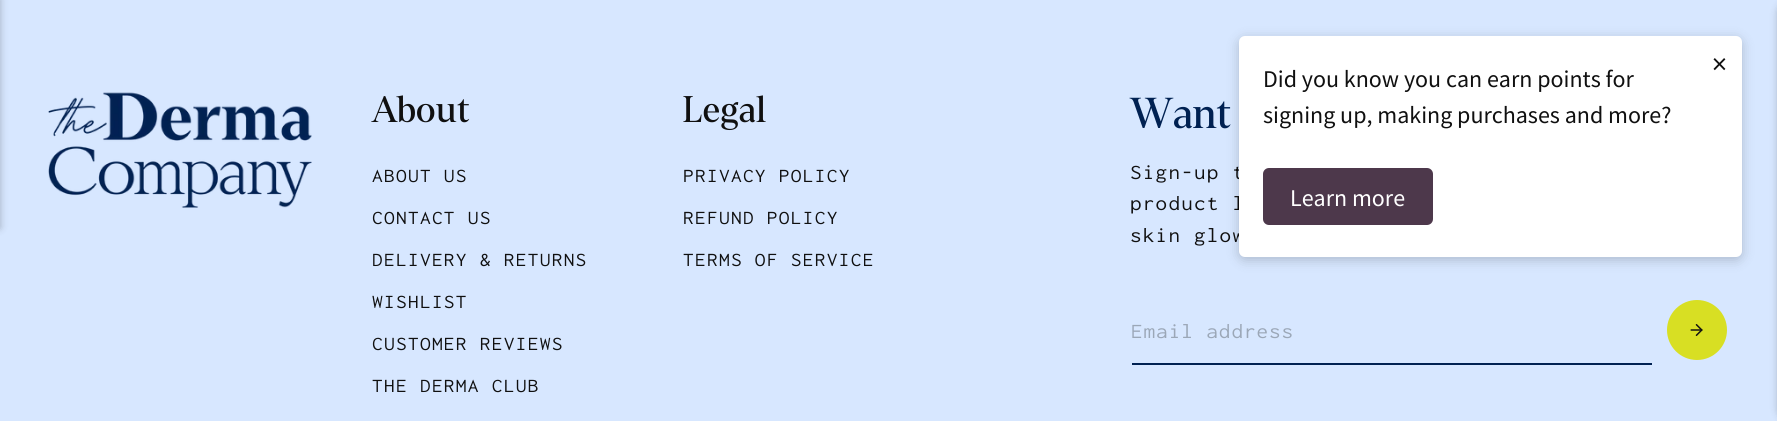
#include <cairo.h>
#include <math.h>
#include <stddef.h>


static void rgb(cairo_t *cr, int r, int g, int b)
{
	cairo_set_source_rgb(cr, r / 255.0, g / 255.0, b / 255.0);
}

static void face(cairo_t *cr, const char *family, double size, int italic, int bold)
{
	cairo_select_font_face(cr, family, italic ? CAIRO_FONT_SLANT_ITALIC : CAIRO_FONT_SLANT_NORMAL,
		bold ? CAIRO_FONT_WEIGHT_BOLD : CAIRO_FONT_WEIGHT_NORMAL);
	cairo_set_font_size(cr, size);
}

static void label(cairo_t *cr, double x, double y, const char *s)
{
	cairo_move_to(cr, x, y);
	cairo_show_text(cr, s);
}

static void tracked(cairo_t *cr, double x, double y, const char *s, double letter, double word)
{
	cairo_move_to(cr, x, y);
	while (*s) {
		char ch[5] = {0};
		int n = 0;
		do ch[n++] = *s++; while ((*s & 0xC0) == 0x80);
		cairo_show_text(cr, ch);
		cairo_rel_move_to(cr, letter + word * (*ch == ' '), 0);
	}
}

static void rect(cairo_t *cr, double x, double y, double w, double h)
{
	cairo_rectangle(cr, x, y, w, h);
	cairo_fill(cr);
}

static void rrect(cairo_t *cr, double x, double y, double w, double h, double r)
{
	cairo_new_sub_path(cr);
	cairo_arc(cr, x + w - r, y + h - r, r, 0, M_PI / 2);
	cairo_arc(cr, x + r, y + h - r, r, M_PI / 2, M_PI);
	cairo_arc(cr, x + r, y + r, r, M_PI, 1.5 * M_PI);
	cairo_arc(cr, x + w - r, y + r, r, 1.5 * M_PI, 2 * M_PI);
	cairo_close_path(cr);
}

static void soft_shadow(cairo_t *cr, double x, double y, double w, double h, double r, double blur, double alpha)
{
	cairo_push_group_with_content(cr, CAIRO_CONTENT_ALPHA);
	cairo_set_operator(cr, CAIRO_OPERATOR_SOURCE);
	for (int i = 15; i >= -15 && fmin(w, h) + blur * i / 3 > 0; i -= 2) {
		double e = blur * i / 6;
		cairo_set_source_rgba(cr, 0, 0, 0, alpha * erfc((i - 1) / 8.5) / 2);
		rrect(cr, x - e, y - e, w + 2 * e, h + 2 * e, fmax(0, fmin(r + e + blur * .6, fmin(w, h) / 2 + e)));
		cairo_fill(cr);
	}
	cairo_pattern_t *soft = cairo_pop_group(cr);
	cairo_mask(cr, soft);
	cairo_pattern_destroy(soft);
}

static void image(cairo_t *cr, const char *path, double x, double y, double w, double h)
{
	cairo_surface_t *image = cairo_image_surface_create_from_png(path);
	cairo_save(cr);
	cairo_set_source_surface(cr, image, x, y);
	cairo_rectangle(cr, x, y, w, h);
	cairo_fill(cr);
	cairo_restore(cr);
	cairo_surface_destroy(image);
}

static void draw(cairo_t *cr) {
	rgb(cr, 215, 231, 255);
	cairo_paint(cr);
	rgb(cr, 0, 0, 0);
	soft_shadow(cr, -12, -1, 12, 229, 0, 4, 0.25);
	image(cr, "image0.png", 48, 92, 264, 116);
	face(cr, "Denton", 36, 0, 0);
	rgb(cr, 16, 16, 16);
	tracked(cr, 372, 122, "About", 1.25, 0);
	face(cr, "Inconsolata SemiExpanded", 19.5, 0, 0);
	tracked(cr, 372, 182, "ABOUT US", 1.25, 0);
	tracked(cr, 372, 224, "CONTACT US", 1.25, 0);
	tracked(cr, 372, 266, "DELIVERY & RETURNS", 1.25, 0);
	tracked(cr, 372, 308, "WISHLIST", 1.25, 0);
	tracked(cr, 372, 350, "CUSTOMER REVIEWS", 1.25, 0);
	tracked(cr, 372, 392, "THE DERMA CLUB", 1.25, 0);
	face(cr, "Denton", 36, 0, 0);
	tracked(cr, 683, 122, "Legal", 1.25, 0);
	face(cr, "Inconsolata SemiExpanded", 19.5, 0, 0);
	tracked(cr, 683, 182, "PRIVACY POLICY", 1.25, 0);
	tracked(cr, 683, 224, "REFUND POLICY", 1.25, 0);
	tracked(cr, 683, 266, "TERMS OF SERVICE", 1.25, 0);
	face(cr, "Denton", 42, 0, 0);
	rgb(cr, 0, 33, 82);
	tracked(cr, 1130, 128, "Want", 1.25, 0);
	face(cr, "Inconsolata SemiExpanded", 21, 0, 0);
	rgb(cr, 16, 16, 16);
	tracked(cr, 1130, 179, "Sign-up t", 1.25, 0);
	tracked(cr, 1130, 210, "product l", 1.25, 0);
	tracked(cr, 1130, 242, "skin glow", 1.25, 0);
	rgb(cr, 0, 33, 82);
	rect(cr, 1130, 363, 522, 2);
	rgb(cr, 215, 231, 255);
	rect(cr, 1130, 363, 2, 2);
	rgb(cr, 155, 167, 183);
	tracked(cr, 1131, 338, "Email address", 1, 0);
	rgb(cr, 216, 223, 35);
	cairo_new_path(cr);
	cairo_arc(cr, 1697, 330, 30, 0, 2 * M_PI);
	cairo_fill(cr);
	image(cr, "image1.png", 1690, 324, 13, 12);
	rgb(cr, 0, 0, 0);
	soft_shadow(cr, 1239, 39, 503, 221, 6, 6, 0.2);
	rgb(cr, 255, 255, 255);
	rrect(cr, 1239, 36, 503, 221, 6);
	cairo_fill(cr);
	face(cr, "Source Sans Pro", 30, 0, 0);
	rgb(cr, 16, 16, 16);
	label(cr, 1712, 74, "×");
	face(cr, "Source Sans Pro", 24, 0, 0);
	label(cr, 1263, 87, "Did you know you can earn points for");
	label(cr, 1263, 123, "signing up, making purchases and more?");
	rgb(cr, 77, 56, 75);
	rrect(cr, 1263, 168, 170, 57, 6);
	cairo_fill(cr);
	rgb(cr, 255, 255, 255);
	label(cr, 1290, 206, "Learn more");
	rgb(cr, 0, 0, 0);
	soft_shadow(cr, 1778, 0, 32, 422, 21, 4, 0.25);
}

int main(void) {
	cairo_surface_t *surface = cairo_image_surface_create(CAIRO_FORMAT_RGB24, 1777, 421);
	cairo_t *cr = cairo_create(surface);
	cairo_font_options_t *options = cairo_font_options_create();
	cairo_font_options_set_hint_metrics(options, CAIRO_HINT_METRICS_OFF);
	cairo_font_options_set_hint_style(options, CAIRO_HINT_STYLE_NONE);
	cairo_set_font_options(cr, options);
	cairo_set_miter_limit(cr, 4);
	draw(cr);
	cairo_surface_write_to_png(surface, "render.png");
	cairo_font_options_destroy(options);
	cairo_destroy(cr);
	cairo_surface_destroy(surface);
	return 0;
}
